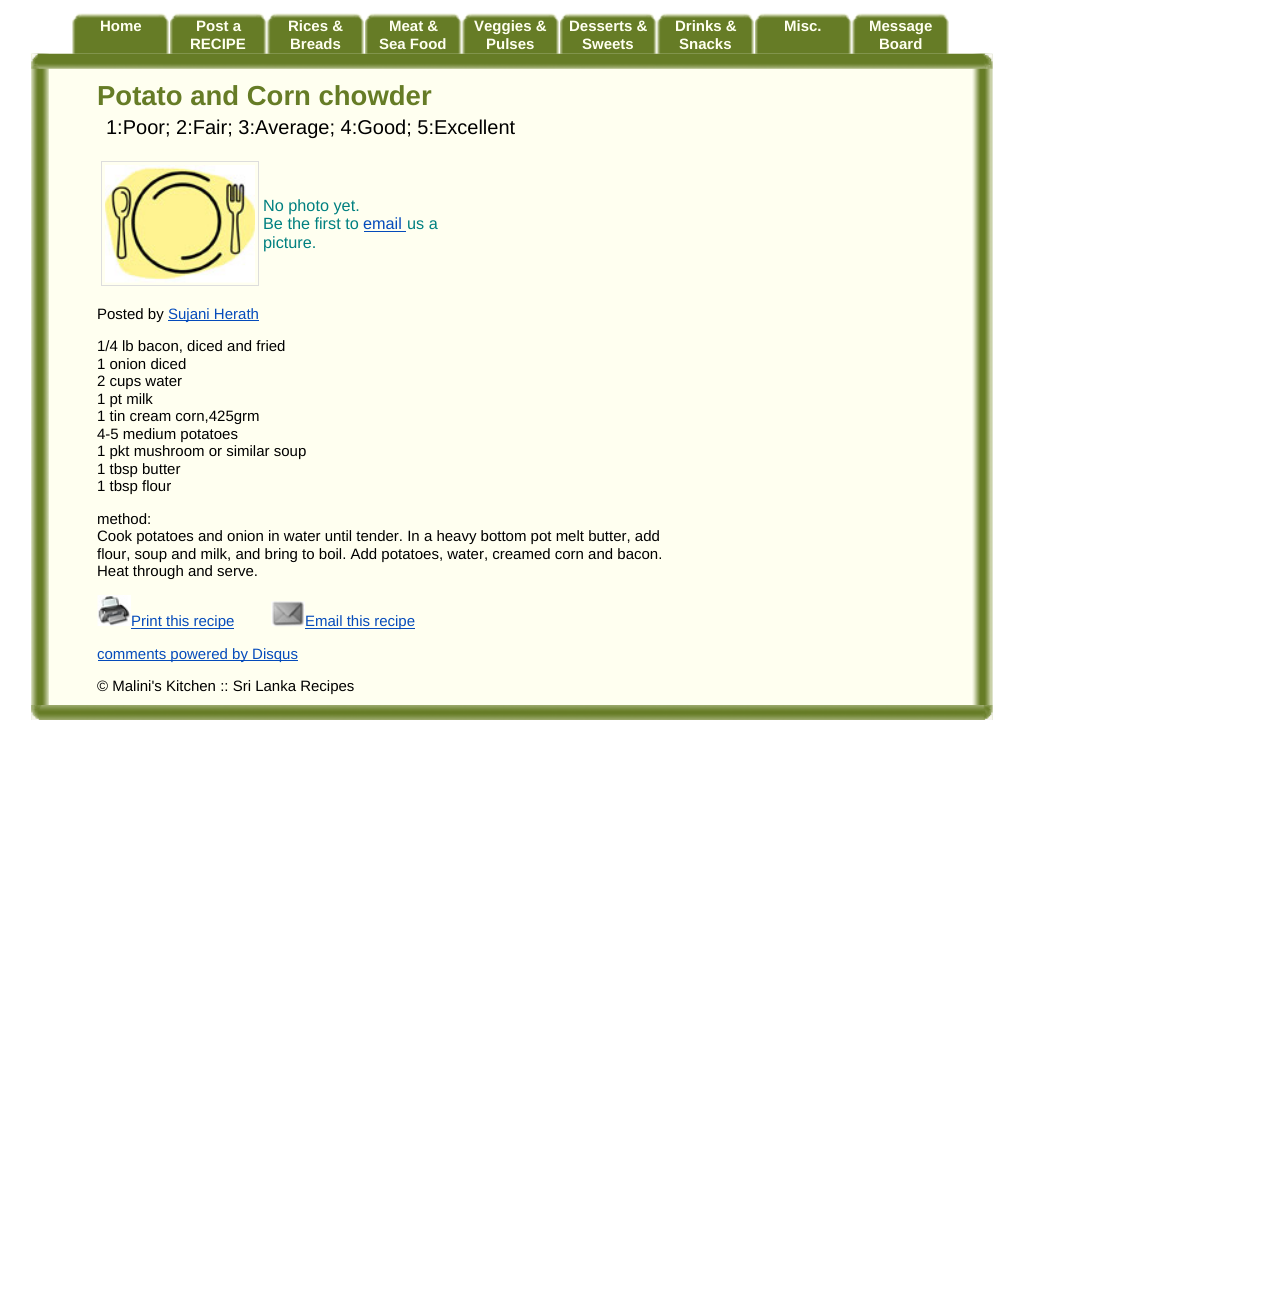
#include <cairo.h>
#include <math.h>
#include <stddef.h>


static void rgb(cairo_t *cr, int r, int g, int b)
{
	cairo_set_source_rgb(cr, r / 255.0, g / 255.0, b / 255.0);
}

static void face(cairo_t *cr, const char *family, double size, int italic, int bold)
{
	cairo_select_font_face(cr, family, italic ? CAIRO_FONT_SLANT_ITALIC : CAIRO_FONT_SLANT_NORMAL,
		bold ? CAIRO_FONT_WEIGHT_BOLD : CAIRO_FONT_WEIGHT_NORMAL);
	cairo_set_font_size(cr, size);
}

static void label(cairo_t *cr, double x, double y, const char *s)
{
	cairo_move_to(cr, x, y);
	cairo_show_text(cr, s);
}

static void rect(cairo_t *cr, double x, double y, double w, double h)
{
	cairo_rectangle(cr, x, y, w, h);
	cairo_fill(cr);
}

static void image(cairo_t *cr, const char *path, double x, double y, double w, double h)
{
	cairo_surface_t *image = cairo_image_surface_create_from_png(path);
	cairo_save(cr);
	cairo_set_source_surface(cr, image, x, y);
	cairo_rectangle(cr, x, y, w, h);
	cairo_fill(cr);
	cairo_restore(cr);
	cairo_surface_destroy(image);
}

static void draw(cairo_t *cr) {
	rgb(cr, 255, 255, 255);
	cairo_paint(cr);
	image(cr, "image5.png", 31, 53, 962, 667);
	image(cr, "image0.png", 72, 13, 97, 41);
	face(cr, "Liberation Sans", 15, 0, 1);
	rgb(cr, 255, 255, 240);
	label(cr, 100, 31, "Home");
	image(cr, "image1.png", 170, 13, 97, 41);
	label(cr, 196, 31, "Post a");
	label(cr, 190, 49, "RECIPE");
	image(cr, "image2.png", 267, 13, 97, 41);
	label(cr, 288, 31, "Rices &");
	label(cr, 290, 49, "Breads");
	image(cr, "image1.png", 365, 13, 97, 41);
	label(cr, 389, 31, "Meat &");
	label(cr, 379, 49, "Sea Food");
	image(cr, "image2.png", 462, 13, 97, 41);
	label(cr, 474, 31, "Veggies &");
	label(cr, 486, 49, "Pulses");
	image(cr, "image3.png", 560, 13, 97, 41);
	label(cr, 569, 31, "Desserts &");
	label(cr, 582, 49, "Sweets");
	image(cr, "image2.png", 657, 13, 97, 41);
	label(cr, 675, 31, "Drinks &");
	label(cr, 679, 49, "Snacks");
	image(cr, "image4.png", 755, 13, 97, 41);
	label(cr, 784, 31, "Misc.");
	image(cr, "image2.png", 852, 13, 97, 41);
	label(cr, 869, 31, "Message");
	label(cr, 879, 49, "Board");
	image(cr, "image6.png", 31, 53, 962, 16);
	image(cr, "image7.png", 31, 705, 962, 15);
	face(cr, "Liberation Sans", 27.5, 0, 1);
	rgb(cr, 102, 124, 38);
	label(cr, 97, 105, "Potato and Corn chowder");
	face(cr, "Liberation Sans", 20, 0, 0);
	rgb(cr, 0, 0, 0);
	label(cr, 106, 134, "1:Poor; 2:Fair; 3:Average; 4:Good; 5:Excellent");
	cairo_rectangle(cr, 101.5, 161.5, 157, 124);
	rgb(cr, 221, 221, 221);
	cairo_set_line_width(cr, 1);
	cairo_stroke(cr);
	image(cr, "image8.png", 105, 165, 150, 118);
	face(cr, "Liberation Sans", 16.25, 0, 0);
	rgb(cr, 0, 128, 128);
	label(cr, 263, 211, "No photo yet.");
	label(cr, 263, 229, "Be the first to");
	rgb(cr, 5, 75, 187);
	label(cr, 363, 229, "email");
	rgb(cr, 0, 128, 128);
	label(cr, 407, 229, "us a");
	rgb(cr, 5, 75, 187);
	rect(cr, 364, 231, 42, 1);
	rgb(cr, 0, 128, 128);
	label(cr, 263, 248, "picture.");
	face(cr, "Liberation Sans", 15, 0, 0);
	rgb(cr, 0, 0, 0);
	label(cr, 97, 319, "Posted by");
	rgb(cr, 5, 75, 187);
	rect(cr, 168, 320, 91, 1);
	label(cr, 168, 319, "Sujani Herath");
	rgb(cr, 0, 0, 0);
	label(cr, 97, 351, "1/4 lb bacon, diced and fried");
	label(cr, 97, 369, "1 onion diced");
	label(cr, 97, 386, "2 cups water");
	label(cr, 97, 404, "1 pt milk");
	label(cr, 97, 421, "1 tin cream corn,425grm");
	label(cr, 97, 439, "4-5 medium potatoes");
	label(cr, 97, 456, "1 pkt mushroom or similar soup");
	label(cr, 97, 474, "1 tbsp butter");
	label(cr, 97, 491, "1 tbsp flour");
	label(cr, 97, 524, "method:");
	label(cr, 97, 541, "Cook potatoes and onion in water until tender. In a heavy bottom pot melt butter, add");
	label(cr, 97, 559, "flour, soup and milk, and bring to boil. Add potatoes, water, creamed corn and bacon.");
	label(cr, 97, 576, "Heat through and serve.");
	image(cr, "image9.png", 97, 595, 34, 31);
	rgb(cr, 5, 75, 187);
	rect(cr, 131, 628, 103, 1);
	label(cr, 131, 626, "Print this recipe");
	image(cr, "image10.png", 271, 601, 34, 26);
	rect(cr, 305, 628, 110, 1);
	label(cr, 305, 626, "Email this recipe");
	rect(cr, 98, 660, 200, 1);
	label(cr, 97, 659, "comments powered by Disqus");
	rgb(cr, 0, 0, 0);
	label(cr, 97, 691, "© Malini's Kitchen :: Sri Lanka Recipes");
}

int main(void) {
	cairo_surface_t *surface = cairo_image_surface_create(CAIRO_FORMAT_RGB24, 1273, 1310);
	cairo_t *cr = cairo_create(surface);
	cairo_font_options_t *options = cairo_font_options_create();
	cairo_font_options_set_hint_metrics(options, CAIRO_HINT_METRICS_OFF);
	cairo_font_options_set_hint_style(options, CAIRO_HINT_STYLE_NONE);
	cairo_set_font_options(cr, options);
	cairo_set_miter_limit(cr, 4);
	draw(cr);
	cairo_surface_write_to_png(surface, "render.png");
	cairo_font_options_destroy(options);
	cairo_destroy(cr);
	cairo_surface_destroy(surface);
	return 0;
}
